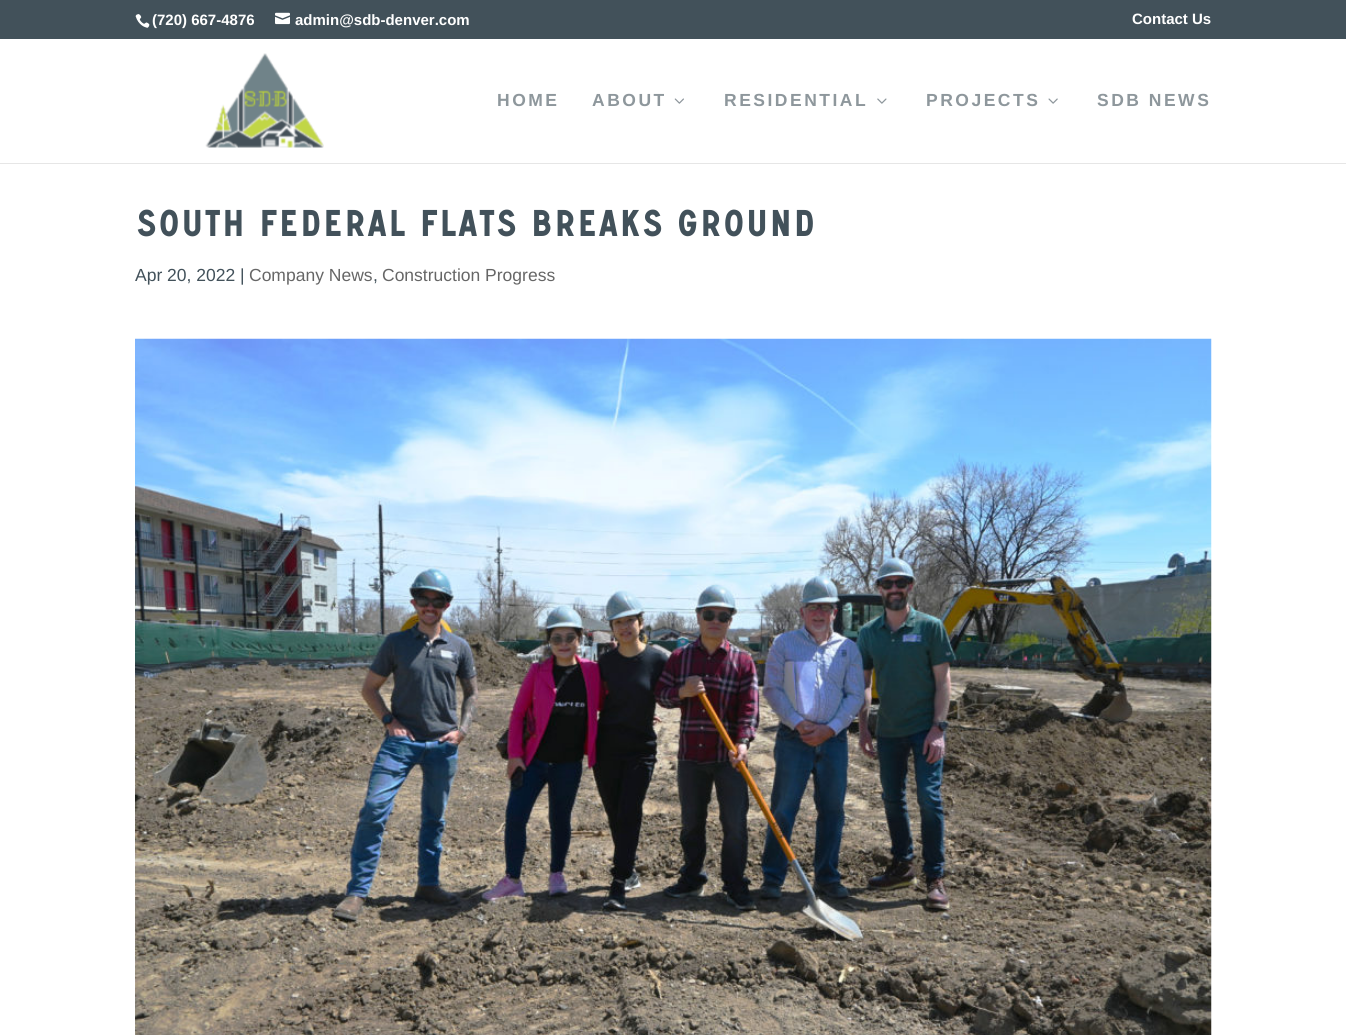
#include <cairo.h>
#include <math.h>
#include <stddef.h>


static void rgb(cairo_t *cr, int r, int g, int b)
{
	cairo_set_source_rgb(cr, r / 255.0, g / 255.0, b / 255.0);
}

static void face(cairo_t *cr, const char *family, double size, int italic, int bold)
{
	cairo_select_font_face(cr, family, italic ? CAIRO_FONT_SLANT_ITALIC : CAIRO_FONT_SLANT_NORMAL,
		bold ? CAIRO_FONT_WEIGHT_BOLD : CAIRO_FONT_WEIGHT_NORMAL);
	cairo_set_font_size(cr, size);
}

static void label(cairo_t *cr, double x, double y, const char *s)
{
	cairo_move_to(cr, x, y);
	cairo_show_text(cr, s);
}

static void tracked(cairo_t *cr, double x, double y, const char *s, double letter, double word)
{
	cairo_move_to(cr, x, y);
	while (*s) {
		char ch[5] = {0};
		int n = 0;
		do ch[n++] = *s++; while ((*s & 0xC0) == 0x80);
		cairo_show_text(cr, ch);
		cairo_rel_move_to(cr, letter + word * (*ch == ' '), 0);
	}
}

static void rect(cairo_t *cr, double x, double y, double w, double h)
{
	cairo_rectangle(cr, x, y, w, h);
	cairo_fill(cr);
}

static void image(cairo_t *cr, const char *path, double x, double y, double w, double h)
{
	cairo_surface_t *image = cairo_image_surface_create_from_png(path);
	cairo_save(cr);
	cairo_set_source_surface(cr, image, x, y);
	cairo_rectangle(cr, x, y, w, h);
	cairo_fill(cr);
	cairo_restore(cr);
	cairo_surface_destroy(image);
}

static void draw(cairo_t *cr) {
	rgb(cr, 255, 255, 255);
	cairo_paint(cr);
	rgb(cr, 66, 81, 90);
	rect(cr, 0, 0, 1346, 39);
	image(cr, "image0.png", 135, 14, 15, 14);
	face(cr, "Liberation Sans", 15, 0, 1);
	rgb(cr, 255, 255, 255);
	label(cr, 152, 25, "(720) 667-4876");
	image(cr, "image1.png", 275, 12, 15, 13);
	label(cr, 295, 25, "admin@sdb-denver.com");
	label(cr, 1132, 24, "Contact Us");
	rgb(cr, 230, 230, 230);
	rect(cr, 0, 163, 1346, 1);
	image(cr, "image2.png", 205, 53, 119, 95);
	face(cr, "Liberation Sans", 17.5, 0, 1);
	rgb(cr, 142, 151, 156);
	tracked(cr, 497, 106, "HOME", 2.5, 0);
	tracked(cr, 592, 106, "ABOUT", 2.5, 0);
	image(cr, "image3.png", 674, 98, 10, 6);
	tracked(cr, 724, 106, "RESIDENTIAL", 2.5, 0);
	image(cr, "image4.png", 877, 98, 10, 6);
	tracked(cr, 926, 106, "PROJECTS", 2.5, 0);
	image(cr, "image5.png", 1048, 98, 10, 6);
	tracked(cr, 1097, 106, "SDB NEWS", 2.5, 0);
	face(cr, "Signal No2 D", 37.5, 0, 1);
	rgb(cr, 66, 81, 90);
	label(cr, 135, 236, "South Federal Flats Breaks Ground");
	face(cr, "Liberation Sans", 17.5, 0, 0);
	label(cr, 135, 281, "Apr 20, 2022 |");
	rgb(cr, 102, 102, 102);
	label(cr, 249, 281, "Company News");
	rgb(cr, 66, 81, 90);
	label(cr, 373, 281, ",");
	rgb(cr, 102, 102, 102);
	label(cr, 382, 281, "Construction Progress");
	image(cr, "image6.png", 135, 338, 1077, 697);
}

int main(void) {
	cairo_surface_t *surface = cairo_image_surface_create(CAIRO_FORMAT_RGB24, 1346, 1035);
	cairo_t *cr = cairo_create(surface);
	cairo_font_options_t *options = cairo_font_options_create();
	cairo_font_options_set_hint_metrics(options, CAIRO_HINT_METRICS_OFF);
	cairo_font_options_set_hint_style(options, CAIRO_HINT_STYLE_NONE);
	cairo_set_font_options(cr, options);
	cairo_set_miter_limit(cr, 4);
	draw(cr);
	cairo_surface_write_to_png(surface, "render.png");
	cairo_font_options_destroy(options);
	cairo_destroy(cr);
	cairo_surface_destroy(surface);
	return 0;
}
